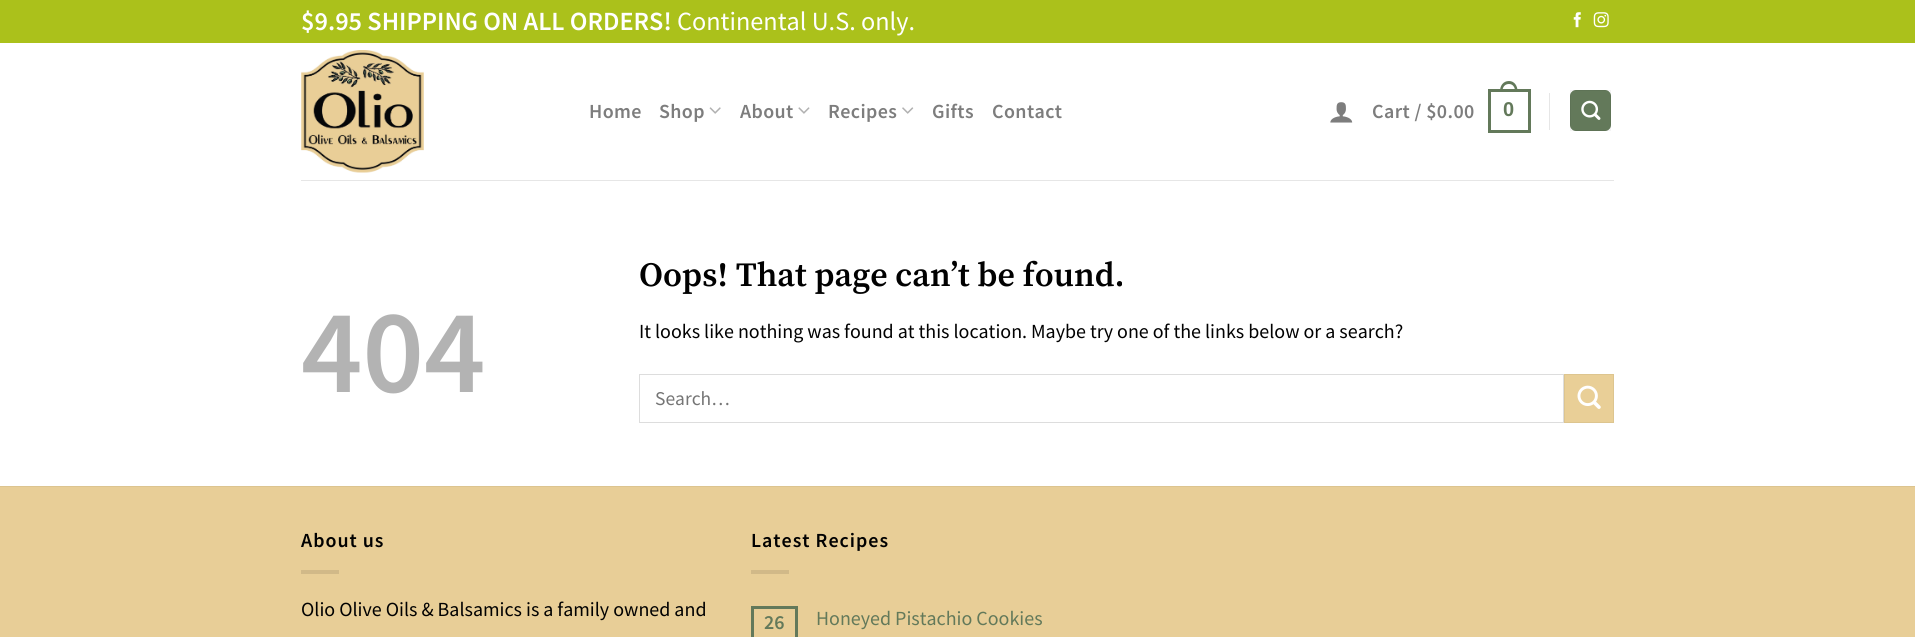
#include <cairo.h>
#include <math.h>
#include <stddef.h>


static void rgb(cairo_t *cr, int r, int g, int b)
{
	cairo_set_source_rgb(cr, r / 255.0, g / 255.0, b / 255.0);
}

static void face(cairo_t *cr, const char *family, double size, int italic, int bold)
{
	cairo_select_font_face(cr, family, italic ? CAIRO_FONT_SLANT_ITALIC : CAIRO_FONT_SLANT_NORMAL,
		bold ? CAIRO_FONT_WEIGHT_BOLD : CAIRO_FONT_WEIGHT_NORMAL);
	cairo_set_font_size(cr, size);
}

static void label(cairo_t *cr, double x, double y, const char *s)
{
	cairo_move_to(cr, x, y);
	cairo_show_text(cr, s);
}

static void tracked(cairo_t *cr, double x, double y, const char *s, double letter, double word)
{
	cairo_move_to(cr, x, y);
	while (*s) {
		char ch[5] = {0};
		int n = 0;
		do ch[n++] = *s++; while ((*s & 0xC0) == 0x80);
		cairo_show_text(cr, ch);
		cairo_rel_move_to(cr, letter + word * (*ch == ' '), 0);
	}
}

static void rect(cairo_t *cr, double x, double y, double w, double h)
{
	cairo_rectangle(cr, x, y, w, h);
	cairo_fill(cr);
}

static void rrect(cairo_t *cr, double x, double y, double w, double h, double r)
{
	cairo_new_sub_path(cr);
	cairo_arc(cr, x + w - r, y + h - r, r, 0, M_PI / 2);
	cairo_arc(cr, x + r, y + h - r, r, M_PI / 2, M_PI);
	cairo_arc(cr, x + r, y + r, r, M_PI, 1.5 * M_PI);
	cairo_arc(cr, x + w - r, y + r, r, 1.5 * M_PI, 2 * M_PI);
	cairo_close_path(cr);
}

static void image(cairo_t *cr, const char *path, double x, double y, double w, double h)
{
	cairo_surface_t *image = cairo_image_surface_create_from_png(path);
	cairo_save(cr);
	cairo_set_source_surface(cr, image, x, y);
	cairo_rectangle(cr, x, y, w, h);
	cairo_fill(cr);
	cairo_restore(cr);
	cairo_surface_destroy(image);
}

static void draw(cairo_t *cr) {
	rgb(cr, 255, 255, 255);
	cairo_paint(cr);
	rgb(cr, 171, 193, 27);
	rect(cr, 0, 0, 1915, 43);
	face(cr, "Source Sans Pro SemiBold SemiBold", 26.25, 0, 0);
	rgb(cr, 255, 255, 255);
	label(cr, 301, 30, "$9.95 SHIPPING ON ALL ORDERS!");
	face(cr, "Source Sans Pro", 26.25, 0, 0);
	label(cr, 677, 30, "Continental U.S. only.");
	image(cr, "image0.png", 1573, 12, 8, 16);
	image(cr, "image1.png", 1593, 12, 16, 16);
	image(cr, "image2.png", 301, 50, 123, 123);
	face(cr, "Source Sans Pro SemiBold SemiBold", 20, 0, 0);
	rgb(cr, 125, 125, 125);
	tracked(cr, 589, 118, "Home", 0.4, 0);
	tracked(cr, 659, 118, "Shop", 0.4, 0);
	image(cr, "image3.png", 709, 107, 12, 7);
	tracked(cr, 740, 118, "About", 0.4, 0);
	image(cr, "image4.png", 798, 107, 12, 7);
	tracked(cr, 828, 118, "Recipes", 0.4, 0);
	image(cr, "image5.png", 902, 107, 12, 7);
	tracked(cr, 932, 118, "Gifts", 0.4, 0);
	tracked(cr, 992, 118, "Contact", 0.4, 0);
	image(cr, "image6.png", 1330, 102, 23, 21);
	tracked(cr, 1372, 118, "Cart / $0.00", 0.4, 0);
	cairo_rectangle(cr, 1489.5, 90.5, 40, 41);
	rgb(cr, 99, 121, 90);
	cairo_set_line_width(cr, 3);
	cairo_stroke(cr);
	cairo_set_fill_rule(cr, CAIRO_FILL_RULE_EVEN_ODD);
	cairo_new_path(cr);
	cairo_move_to(cr, 1509, 81);
	cairo_curve_to(cr, 1514.5, 81, 1517.5, 86, 1517.5, 91);
	cairo_line_to(cr, 1500, 91);
	cairo_curve_to(cr, 1500, 86, 1503, 81, 1509, 81);
	cairo_close_path(cr);
	cairo_move_to(cr, 1509, 84);
	cairo_curve_to(cr, 1513, 84, 1515, 87.5, 1515, 91);
	cairo_line_to(cr, 1502.5, 91);
	cairo_curve_to(cr, 1502.5, 87.5, 1504.5, 84, 1509, 84);
	cairo_close_path(cr);
	cairo_fill(cr);
	face(cr, "Liberation Sans", 20, 0, 1);
	tracked(cr, 1503, 116, "0", 0.4, 0);
	rgb(cr, 230, 230, 230);
	rect(cr, 1549, 93, 1, 37);
	rgb(cr, 99, 121, 90);
	rrect(cr, 1570, 90, 41, 41, 6);
	cairo_fill(cr);
	cairo_rectangle(cr, 1570.5, 90.5, 40, 40);
	cairo_set_source_rgba(cr, 0, 0, 0, 0.05);
	cairo_set_line_width(cr, 1);
	cairo_stroke(cr);
	image(cr, "image7.png", 1581, 100, 20, 20);
	rgb(cr, 230, 230, 230);
	rect(cr, 301, 180, 1313, 1);
	face(cr, "Source Sans Pro SemiBold SemiBold", 120, 0, 0);
	rgb(cr, 179, 179, 179);
	label(cr, 301, 392, "404");
	face(cr, "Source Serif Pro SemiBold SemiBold", 34, 0, 0);
	rgb(cr, 1, 1, 1);
	label(cr, 639, 286, "Oops! That page can’t be found.");
	face(cr, "Source Sans Pro", 20, 0, 0);
	label(cr, 639, 338, "It looks like nothing was found at this location. Maybe try one of the links below or a search?");
	cairo_rectangle(cr, 639.5, 374.5, 924, 48);
	rgb(cr, 221, 221, 221);
	cairo_stroke(cr);
	face(cr, "Source Sans Pro", 19.5, 0, 0);
	rgb(cr, 117, 117, 117);
	label(cr, 655, 405, "Search…");
	rgb(cr, 233, 207, 151);
	cairo_rectangle(cr, 1564.5, 374.5, 49, 48);
	cairo_fill_preserve(cr);
	rgb(cr, 221, 197, 143);
	cairo_stroke(cr);
	image(cr, "image8.png", 1577, 385, 24, 24);
	rgb(cr, 232, 206, 151);
	rect(cr, 0, 487, 1915, 150);
	rgb(cr, 220, 196, 143);
	rect(cr, 0, 486, 1915, 1);
	face(cr, "Source Sans Pro SemiBold SemiBold", 20, 0, 0);
	rgb(cr, 1, 1, 1);
	tracked(cr, 301, 547, "About us", 1, 0);
	rgb(cr, 209, 185, 136);
	rect(cr, 301, 570, 38, 4);
	face(cr, "Source Sans Pro", 20, 0, 0);
	rgb(cr, 1, 1, 1);
	label(cr, 301, 616, "Olio Olive Oils & Balsamics is a family owned and");
	face(cr, "Source Sans Pro SemiBold SemiBold", 20, 0, 0);
	tracked(cr, 751, 547, "Latest Recipes", 1, 0);
	rgb(cr, 209, 185, 136);
	rect(cr, 751, 570, 38, 4);
	cairo_rectangle(cr, 752.5, 607.5, 44, 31);
	rgb(cr, 99, 121, 90);
	cairo_set_line_width(cr, 3);
	cairo_stroke(cr);
	label(cr, 764, 629, "26");
	face(cr, "Source Sans Pro", 20, 0, 0);
	label(cr, 816, 625, "Honeyed Pistachio Cookies");
}

int main(void) {
	cairo_surface_t *surface = cairo_image_surface_create(CAIRO_FORMAT_RGB24, 1915, 637);
	cairo_t *cr = cairo_create(surface);
	cairo_font_options_t *options = cairo_font_options_create();
	cairo_font_options_set_hint_metrics(options, CAIRO_HINT_METRICS_OFF);
	cairo_font_options_set_hint_style(options, CAIRO_HINT_STYLE_NONE);
	cairo_set_font_options(cr, options);
	cairo_set_miter_limit(cr, 4);
	draw(cr);
	cairo_surface_write_to_png(surface, "render.png");
	cairo_font_options_destroy(options);
	cairo_destroy(cr);
	cairo_surface_destroy(surface);
	return 0;
}
